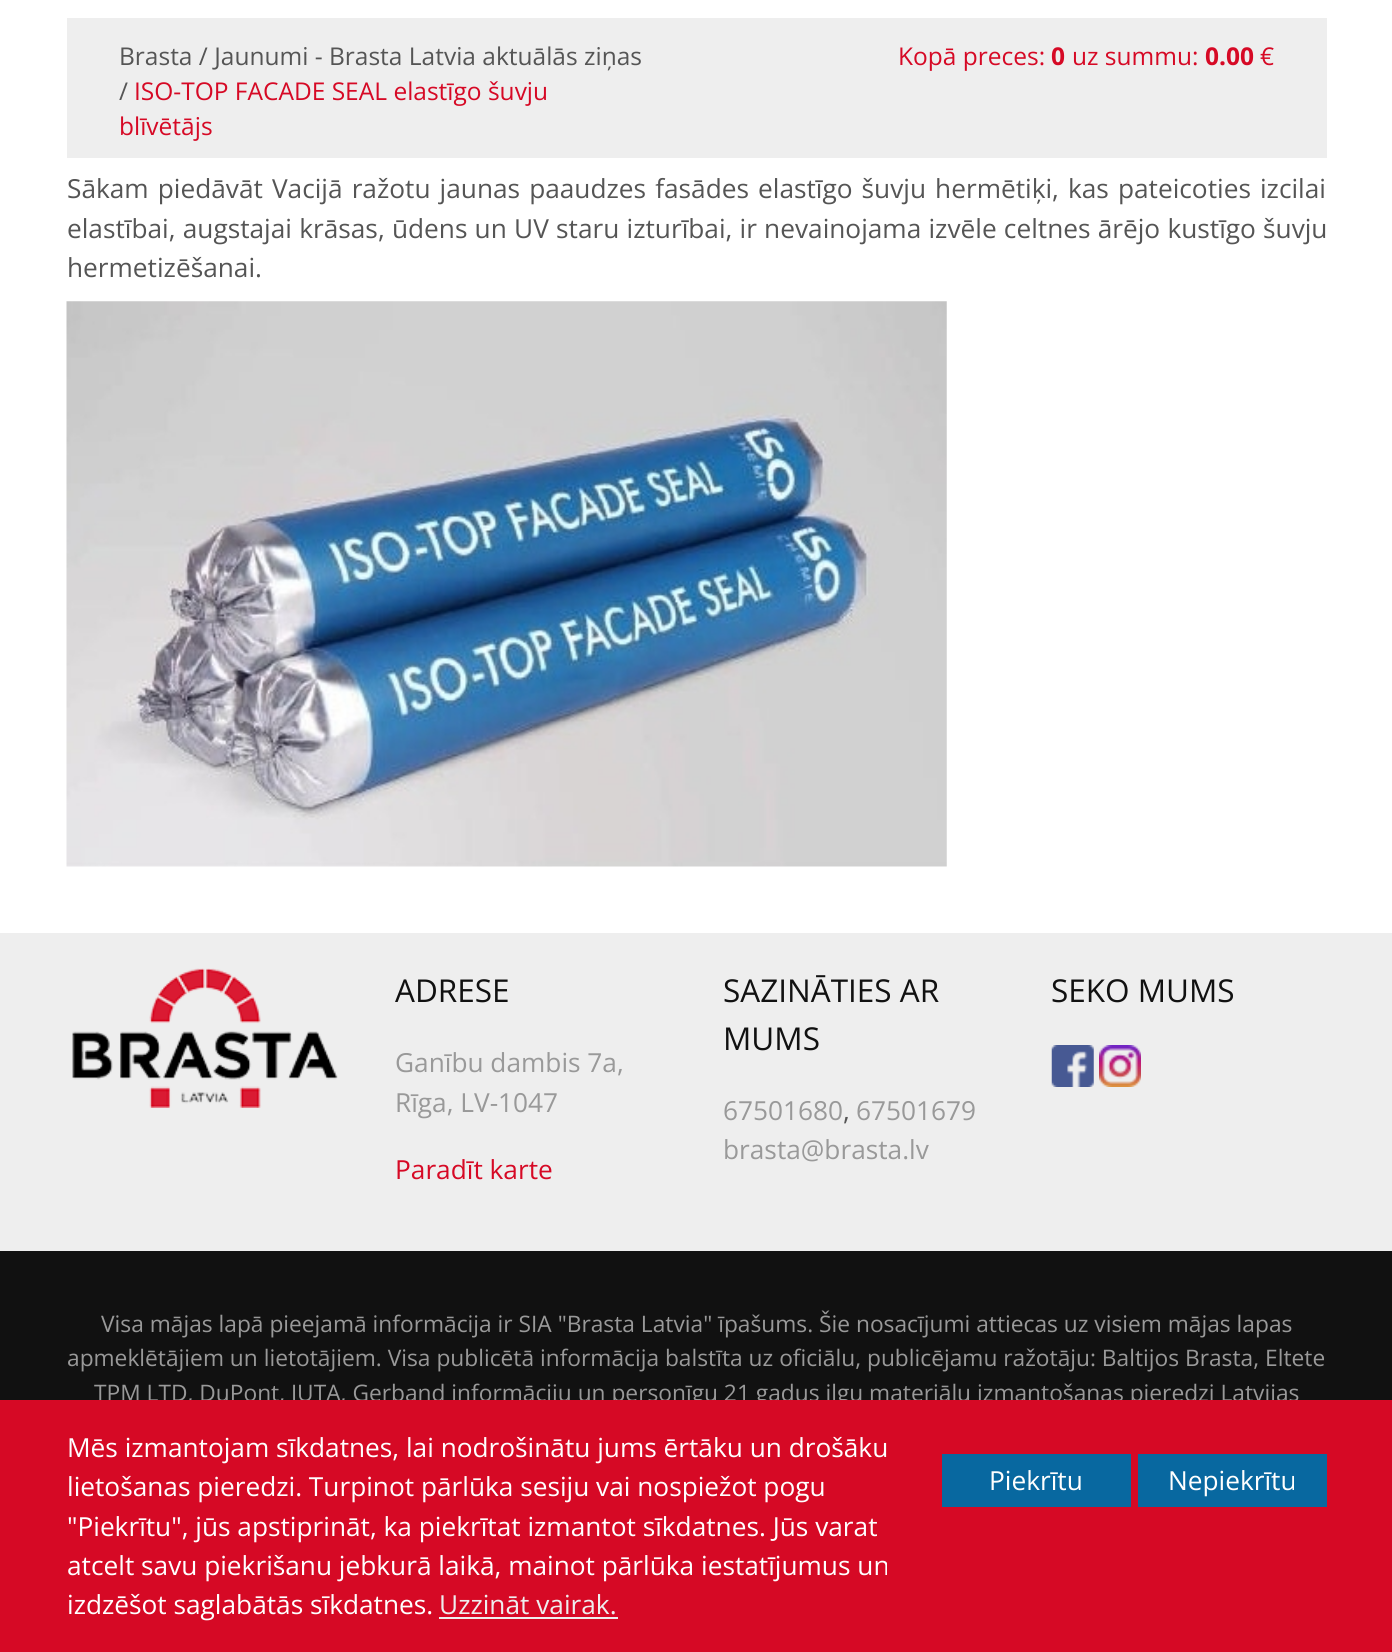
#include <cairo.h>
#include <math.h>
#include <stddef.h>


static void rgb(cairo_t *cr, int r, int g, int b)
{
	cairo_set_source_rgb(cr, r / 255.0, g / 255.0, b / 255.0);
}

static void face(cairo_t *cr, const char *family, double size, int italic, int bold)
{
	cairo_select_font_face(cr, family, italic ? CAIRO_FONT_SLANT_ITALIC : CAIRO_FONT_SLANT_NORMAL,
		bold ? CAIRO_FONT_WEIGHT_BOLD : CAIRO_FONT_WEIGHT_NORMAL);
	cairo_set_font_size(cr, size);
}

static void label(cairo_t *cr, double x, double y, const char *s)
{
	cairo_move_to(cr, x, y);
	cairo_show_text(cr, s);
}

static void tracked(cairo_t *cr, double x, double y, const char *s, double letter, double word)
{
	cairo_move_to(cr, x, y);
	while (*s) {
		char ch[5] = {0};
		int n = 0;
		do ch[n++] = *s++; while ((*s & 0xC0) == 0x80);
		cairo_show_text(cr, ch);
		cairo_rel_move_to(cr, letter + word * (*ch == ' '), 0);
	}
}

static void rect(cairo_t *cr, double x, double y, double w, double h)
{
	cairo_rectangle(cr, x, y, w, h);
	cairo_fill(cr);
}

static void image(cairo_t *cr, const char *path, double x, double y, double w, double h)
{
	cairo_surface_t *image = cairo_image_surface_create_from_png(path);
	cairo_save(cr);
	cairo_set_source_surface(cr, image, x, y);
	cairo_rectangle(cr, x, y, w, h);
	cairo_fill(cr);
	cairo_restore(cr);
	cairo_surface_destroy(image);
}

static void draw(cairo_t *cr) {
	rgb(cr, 255, 255, 255);
	cairo_paint(cr);
	rgb(cr, 238, 238, 238);
	rect(cr, 67, 18, 1260, 140);
	face(cr, "Open Sans", 24.5, 0, 0);
	rgb(cr, 85, 85, 85);
	label(cr, 119, 65, "Brasta / Jaunumi - Brasta Latvia aktuālās ziņas");
	label(cr, 119, 100, "/");
	rgb(cr, 214, 9, 37);
	label(cr, 134, 100, "ISO-TOP FACADE SEAL elastīgo šuvju");
	label(cr, 119, 135, "blīvētājs");
	label(cr, 898, 65, "Kopā preces:");
	face(cr, "Open Sans", 24.5, 0, 1);
	label(cr, 1051, 65, "0");
	face(cr, "Open Sans", 24.5, 0, 0);
	label(cr, 1072, 65, "uz summu:");
	face(cr, "Open Sans", 24.5, 0, 1);
	label(cr, 1205, 65, "0.00");
	face(cr, "Open Sans", 24.5, 0, 0);
	label(cr, 1260, 65, "€");
	face(cr, "Open Sans", 26.25, 0, 0);
	rgb(cr, 85, 85, 85);
	tracked(cr, 67, 198, "Sākam piedāvāt Vacijā ražotu jaunas paaudzes fasādes elastīgo šuvju hermētiķi, kas pateicoties izcilai", 0, 2.25);
	tracked(cr, 67, 238, "elastībai, augstajai krāsas, ūdens un UV staru izturībai, ir nevainojama izvēle celtnes ārējo kustīgo šuvju", 0, 0.4);
	label(cr, 67, 277, "hermetizēšanai.");
	image(cr, "image0.png", 66, 301, 881, 566);
	rgb(cr, 238, 238, 238);
	rect(cr, 0, 933, 1392, 318);
	image(cr, "image1.png", 72, 968, 266, 140);
	face(cr, "Open Sans", 31.5, 0, 0);
	rgb(cr, 17, 17, 17);
	label(cr, 395, 1002, "ADRESE");
	face(cr, "Open Sans", 26.25, 0, 0);
	rgb(cr, 153, 153, 153);
	label(cr, 395, 1072, "Ganību dambis 7a,");
	label(cr, 395, 1112, "Rīga, LV-1047");
	rgb(cr, 214, 9, 37);
	label(cr, 395, 1179, "Paradīt karte");
	face(cr, "Open Sans", 31.5, 0, 0);
	rgb(cr, 17, 17, 17);
	label(cr, 723, 1002, "SAZINĀTIES AR");
	label(cr, 723, 1050, "MUMS");
	face(cr, "Open Sans", 26.25, 0, 0);
	rgb(cr, 153, 153, 153);
	label(cr, 723, 1120, "67501680");
	rgb(cr, 85, 85, 85);
	label(cr, 843, 1120, ",");
	rgb(cr, 153, 153, 153);
	label(cr, 856, 1120, "67501679");
	label(cr, 723, 1159, "brasta@brasta.lv");
	face(cr, "Open Sans", 31.5, 0, 0);
	rgb(cr, 17, 17, 17);
	label(cr, 1051, 1002, "SEKO MUMS");
	image(cr, "image2.png", 1051, 1045, 43, 42);
	image(cr, "image3.png", 1099, 1045, 42, 42);
	rect(cr, 0, 1251, 1392, 149);
	face(cr, "Open Sans", 22.75, 0, 0);
	rgb(cr, 153, 153, 153);
	label(cr, 101, 1332, "Visa mājas lapā pieejamā informācija ir SIA \"Brasta Latvia\" īpašums. Šie nosacījumi attiecas uz visiem mājas lapas");
	label(cr, 67, 1366, "apmeklētājiem un lietotājiem. Visa publicētā informācija balstīta uz oficiālu, publicējamu ražotāju: Baltijos Brasta, Eltete");
	label(cr, 94, 1401, "TPM LTD, DuPont, JUTA, Gerband informāciju un personīgu 21 gadus ilgu materiālu izmantošanas pieredzi Latvijas");
	rgb(cr, 214, 9, 37);
	rect(cr, 0, 1400, 1392, 252);
	face(cr, "Open Sans", 26.25, 0, 0);
	rgb(cr, 255, 255, 255);
	label(cr, 67, 1457, "Mēs izmantojam sīkdatnes, lai nodrošinātu jums ērtāku un drošāku");
	label(cr, 67, 1496, "lietošanas pieredzi. Turpinot pārlūka sesiju vai nospiežot pogu");
	label(cr, 67, 1536, "\"Piekrītu\", jūs apstiprināt, ka piekrītat izmantot sīkdatnes. Jūs varat");
	label(cr, 67, 1575, "atcelt savu piekrišanu jebkurā laikā, mainot pārlūka iestatījumus un");
	label(cr, 67, 1614, "izdzēšot saglabātās sīkdatnes.");
	rgb(cr, 238, 238, 238);
	label(cr, 439, 1614, "Uzzināt vairak.");
	rect(cr, 439, 1617, 179, 2);
	rgb(cr, 8, 104, 160);
	rect(cr, 942, 1454, 189, 53);
	rgb(cr, 255, 255, 255);
	label(cr, 989, 1490, "Piekrītu");
	rgb(cr, 8, 104, 160);
	rect(cr, 1138, 1454, 189, 53);
	rgb(cr, 255, 255, 255);
	label(cr, 1168, 1490, "Nepiekrītu");
}

int main(void) {
	cairo_surface_t *surface = cairo_image_surface_create(CAIRO_FORMAT_RGB24, 1392, 1652);
	cairo_t *cr = cairo_create(surface);
	cairo_font_options_t *options = cairo_font_options_create();
	cairo_font_options_set_hint_metrics(options, CAIRO_HINT_METRICS_OFF);
	cairo_font_options_set_hint_style(options, CAIRO_HINT_STYLE_NONE);
	cairo_set_font_options(cr, options);
	cairo_set_miter_limit(cr, 4);
	draw(cr);
	cairo_surface_write_to_png(surface, "render.png");
	cairo_font_options_destroy(options);
	cairo_destroy(cr);
	cairo_surface_destroy(surface);
	return 0;
}
